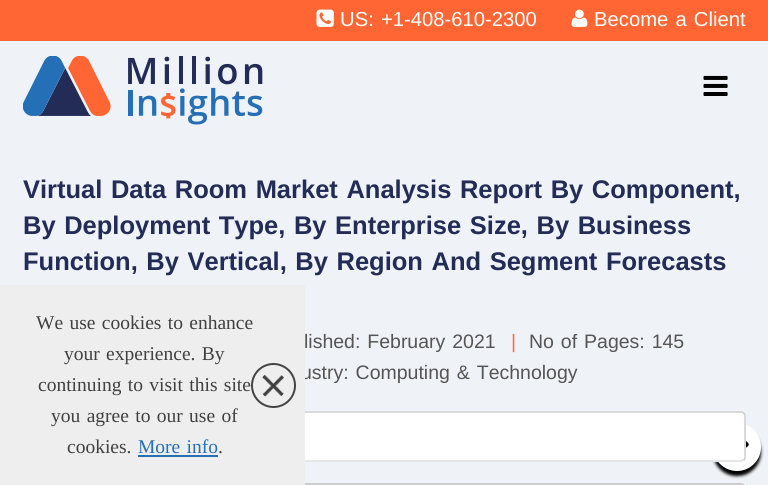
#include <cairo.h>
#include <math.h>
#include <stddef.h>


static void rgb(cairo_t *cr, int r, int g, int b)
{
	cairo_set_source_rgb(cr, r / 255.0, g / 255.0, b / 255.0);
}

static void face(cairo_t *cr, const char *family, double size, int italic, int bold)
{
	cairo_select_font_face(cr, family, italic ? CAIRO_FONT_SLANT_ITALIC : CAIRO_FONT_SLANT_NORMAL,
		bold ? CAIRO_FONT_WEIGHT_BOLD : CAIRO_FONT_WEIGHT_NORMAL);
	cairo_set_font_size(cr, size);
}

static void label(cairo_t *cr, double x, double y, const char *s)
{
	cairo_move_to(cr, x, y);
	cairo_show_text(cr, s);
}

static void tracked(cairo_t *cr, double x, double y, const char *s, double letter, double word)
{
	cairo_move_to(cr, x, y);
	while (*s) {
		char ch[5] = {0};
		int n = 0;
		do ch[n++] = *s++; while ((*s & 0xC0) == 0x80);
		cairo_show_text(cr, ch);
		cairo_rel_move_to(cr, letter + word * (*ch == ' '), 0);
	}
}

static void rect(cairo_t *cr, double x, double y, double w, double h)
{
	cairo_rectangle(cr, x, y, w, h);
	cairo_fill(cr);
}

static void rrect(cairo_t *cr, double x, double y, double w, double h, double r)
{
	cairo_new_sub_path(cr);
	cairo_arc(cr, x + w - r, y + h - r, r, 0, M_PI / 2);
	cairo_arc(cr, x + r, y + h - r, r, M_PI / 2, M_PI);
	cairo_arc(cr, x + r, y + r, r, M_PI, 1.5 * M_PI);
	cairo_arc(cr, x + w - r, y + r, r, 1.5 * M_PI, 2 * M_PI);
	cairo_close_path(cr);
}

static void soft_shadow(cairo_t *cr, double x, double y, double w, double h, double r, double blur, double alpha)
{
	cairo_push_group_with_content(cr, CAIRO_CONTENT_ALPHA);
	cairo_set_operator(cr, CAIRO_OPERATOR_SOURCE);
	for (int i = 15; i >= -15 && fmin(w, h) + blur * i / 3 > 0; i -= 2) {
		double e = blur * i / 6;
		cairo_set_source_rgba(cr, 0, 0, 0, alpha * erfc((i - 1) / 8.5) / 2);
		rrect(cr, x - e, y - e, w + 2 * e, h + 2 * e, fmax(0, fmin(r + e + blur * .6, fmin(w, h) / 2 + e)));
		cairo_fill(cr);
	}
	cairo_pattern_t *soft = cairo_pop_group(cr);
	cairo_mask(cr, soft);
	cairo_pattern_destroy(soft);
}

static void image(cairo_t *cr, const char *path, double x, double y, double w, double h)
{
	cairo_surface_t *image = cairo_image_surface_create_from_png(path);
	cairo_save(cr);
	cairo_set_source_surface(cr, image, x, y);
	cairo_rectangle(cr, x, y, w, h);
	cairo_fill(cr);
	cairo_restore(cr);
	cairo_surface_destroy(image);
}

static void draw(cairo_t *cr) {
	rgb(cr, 239, 242, 247);
	cairo_paint(cr);
	rgb(cr, 255, 102, 51);
	rect(cr, 0, 0, 768, 41);
	image(cr, "image0.png", 316, 9, 18, 18);
	face(cr, "Liberation Sans", 20.25, 0, 0);
	rgb(cr, 255, 255, 255);
	tracked(cr, 340, 26, "US: +1-408-610-2300", 0, 1.5);
	image(cr, "image1.png", 571, 9, 17, 18);
	tracked(cr, 594, 26, "Become a Client", 0, 1.5);
	image(cr, "image2.png", 23, 56, 240, 69);
	image(cr, "image3.png", 703, 75, 25, 21);
	face(cr, "Liberation Sans", 25.5, 0, 1);
	rgb(cr, 34, 44, 87);
	tracked(cr, 23, 198, "Virtual Data Room Market Analysis Report By Component,", 0, 1.5);
	tracked(cr, 23, 234, "By Deployment Type, By Enterprise Size, By Business", 0, 1.5);
	tracked(cr, 23, 270, "Function, By Vertical, By Region And Segment Forecasts", 0, 1.5);
	face(cr, "Liberation Sans", 19.5, 0, 0);
	rgb(cr, 85, 85, 85);
	tracked(cr, 304, 348, "lished: February 2021", 0, 1.5);
	rgb(cr, 255, 102, 51);
	label(cr, 511, 348, "|");
	rgb(cr, 85, 85, 85);
	tracked(cr, 529, 348, "No of Pages: 145", 0, 1.5);
	tracked(cr, 301, 379, "ustry: Computing & Technology", 0, 1.5);
	rgb(cr, 0, 0, 0);
	soft_shadow(cr, 713, 428, 48, 48, 24, 1.5, 1);
	rgb(cr, 255, 255, 255);
	cairo_arc(cr, 737, 447, 24, 0, 2 * M_PI);
	cairo_fill(cr);
	rrect(cr, 23, 411, 723, 51, 5);
	cairo_fill(cr);
	cairo_new_path(cr);
	cairo_move_to(cr, 743.5, 460);
	cairo_line_to(cr, 741, 461);
	cairo_line_to(cr, 27, 461);
	cairo_line_to(cr, 24.5, 460);
	rgb(cr, 221, 221, 221);
	cairo_set_line_width(cr, 1.5);
	cairo_stroke(cr);
	cairo_new_path(cr);
	cairo_move_to(cr, 24.5, 460);
	cairo_curve_to(cr, 23.5, 459.5, 23, 458.5, 23, 457.5);
	cairo_line_to(cr, 23, 415.5);
	cairo_curve_to(cr, 23, 414.5, 23.5, 413.5, 24.5, 413);
	cairo_curve_to(cr, 25, 412, 26, 412, 27, 412);
	cairo_line_to(cr, 741, 412);
	cairo_curve_to(cr, 742, 412, 743, 412, 743.5, 413);
	cairo_curve_to(cr, 744.5, 413.5, 745, 414.5, 745, 415.5);
	cairo_line_to(cr, 745, 457.5);
	cairo_curve_to(cr, 745, 458.5, 744.5, 459.5, 743.5, 460);
	rgb(cr, 204, 204, 204);
	cairo_stroke(cr);
	rrect(cr, 24, 484, 721, 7, 4);
	cairo_set_line_width(cr, 2);
	cairo_stroke(cr);
	rgb(cr, 238, 238, 238);
	rect(cr, 0, 285, 305, 200);
	face(cr, "Liberation Serif", 19.5, 0, 0);
	rgb(cr, 64, 64, 64);
	tracked(cr, 36, 329, "We use cookies to enhance", 0, 1.5);
	tracked(cr, 64, 360, "your experience. By", 0, 1.5);
	tracked(cr, 38, 391, "continuing to visit this site", 0, 1.5);
	tracked(cr, 51, 422, "you agree to our use of", 0, 1.5);
	label(cr, 67, 453, "cookies.");
	rgb(cr, 37, 111, 182);
	tracked(cr, 138, 453, "More info", 0, 1.5);
	rect(cr, 138, 455, 80, 2);
	rgb(cr, 64, 64, 64);
	label(cr, 218, 453, ".");
	cairo_new_path(cr);
	cairo_arc(cr, 273.5, 385.5, 21.5, 0, 2 * M_PI);
	rgb(cr, 68, 68, 68);
	cairo_stroke(cr);
	image(cr, "image4.png", 262, 374, 22, 23);
	image(cr, "image5.png", 746, 441, 3, 7);
}

int main(void) {
	cairo_surface_t *surface = cairo_image_surface_create(CAIRO_FORMAT_RGB24, 768, 485);
	cairo_t *cr = cairo_create(surface);
	cairo_font_options_t *options = cairo_font_options_create();
	cairo_font_options_set_hint_metrics(options, CAIRO_HINT_METRICS_OFF);
	cairo_font_options_set_hint_style(options, CAIRO_HINT_STYLE_NONE);
	cairo_set_font_options(cr, options);
	cairo_set_miter_limit(cr, 4);
	draw(cr);
	cairo_surface_write_to_png(surface, "render.png");
	cairo_font_options_destroy(options);
	cairo_destroy(cr);
	cairo_surface_destroy(surface);
	return 0;
}
